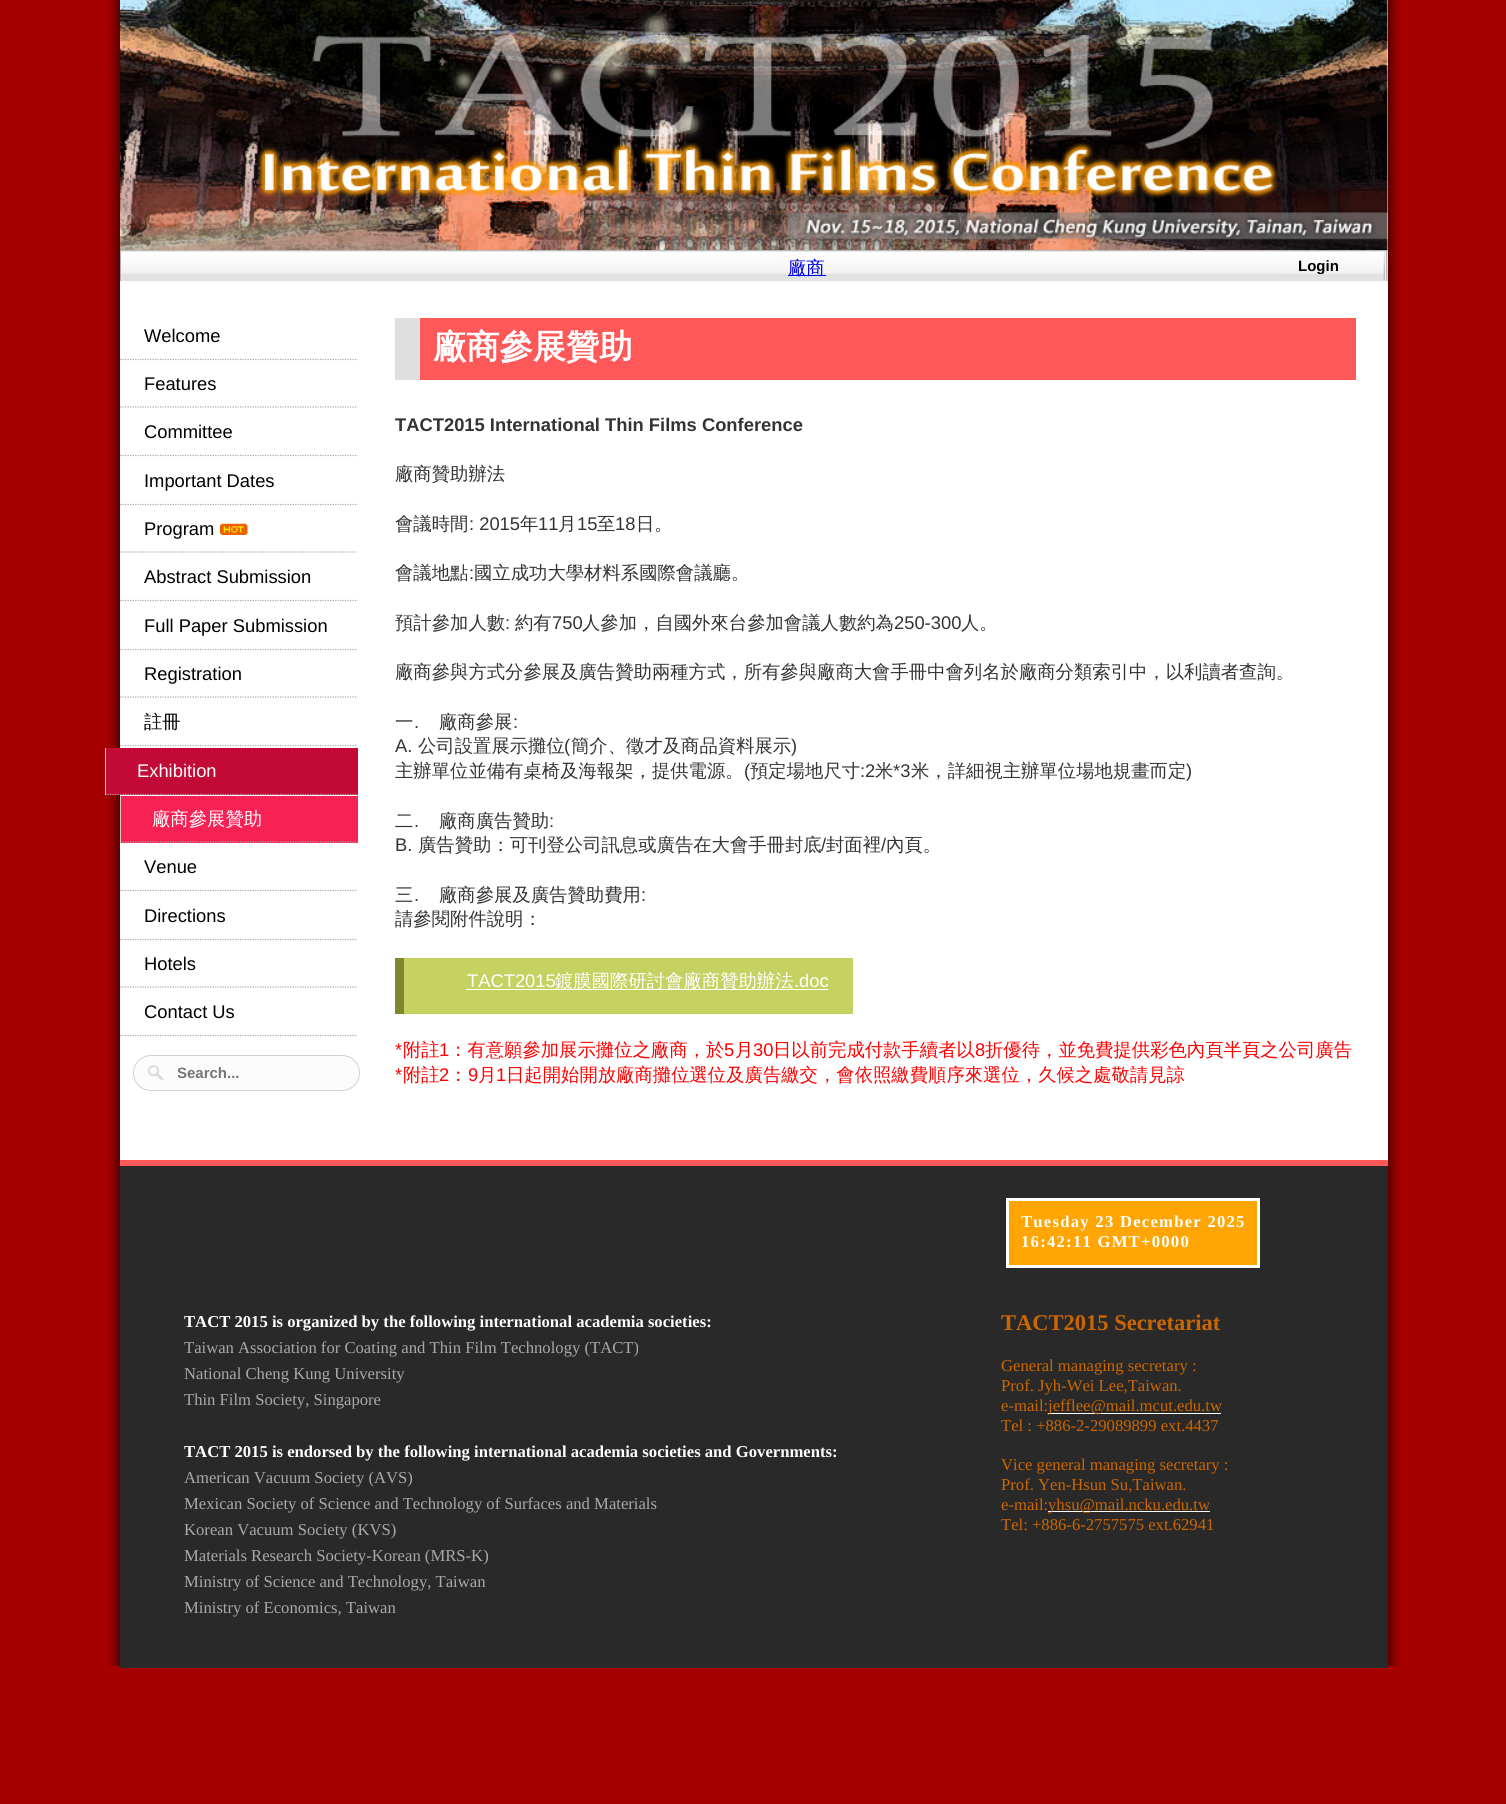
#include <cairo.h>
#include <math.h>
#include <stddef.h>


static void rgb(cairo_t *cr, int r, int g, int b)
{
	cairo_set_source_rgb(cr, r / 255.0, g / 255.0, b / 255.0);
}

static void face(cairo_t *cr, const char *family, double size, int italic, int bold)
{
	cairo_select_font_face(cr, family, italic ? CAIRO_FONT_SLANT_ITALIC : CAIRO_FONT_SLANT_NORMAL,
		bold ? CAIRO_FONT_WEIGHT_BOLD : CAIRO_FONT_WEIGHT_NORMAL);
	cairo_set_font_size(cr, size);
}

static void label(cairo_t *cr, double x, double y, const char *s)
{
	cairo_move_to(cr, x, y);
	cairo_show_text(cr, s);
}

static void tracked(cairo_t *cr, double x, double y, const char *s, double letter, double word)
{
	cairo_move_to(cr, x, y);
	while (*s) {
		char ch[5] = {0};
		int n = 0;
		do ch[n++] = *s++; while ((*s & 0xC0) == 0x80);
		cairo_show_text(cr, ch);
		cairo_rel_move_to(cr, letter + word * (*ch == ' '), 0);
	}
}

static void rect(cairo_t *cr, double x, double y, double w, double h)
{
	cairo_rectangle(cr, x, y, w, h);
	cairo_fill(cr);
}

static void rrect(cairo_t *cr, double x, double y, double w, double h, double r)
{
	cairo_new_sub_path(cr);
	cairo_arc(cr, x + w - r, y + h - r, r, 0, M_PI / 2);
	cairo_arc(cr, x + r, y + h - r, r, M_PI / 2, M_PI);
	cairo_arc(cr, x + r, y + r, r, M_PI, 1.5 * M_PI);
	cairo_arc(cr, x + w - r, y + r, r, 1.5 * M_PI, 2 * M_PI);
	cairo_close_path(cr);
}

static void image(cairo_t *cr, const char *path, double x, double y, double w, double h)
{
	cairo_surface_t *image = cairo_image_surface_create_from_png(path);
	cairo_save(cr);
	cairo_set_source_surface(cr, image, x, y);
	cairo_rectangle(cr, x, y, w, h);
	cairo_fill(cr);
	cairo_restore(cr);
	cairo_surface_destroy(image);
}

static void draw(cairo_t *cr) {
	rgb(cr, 167, 0, 0);
	cairo_paint(cr);
	image(cr, "image0.png", 106, 0, 1296, 1667);
	rgb(cr, 255, 255, 255);
	rect(cr, 120, 0, 1268, 1160);
	image(cr, "image1.png", 120, 0, 1268, 250);
	rgb(cr, 204, 204, 204);
	rect(cr, 1387, 250, 1, 31);
	image(cr, "image2.png", 120, 250, 1268, 32);
	rgb(cr, 0, 0, 238);
	rect(cr, 788, 275, 38, 1);
	face(cr, "WenQuanYi Zen Hei Medium", 18.35, 0, 0);
	label(cr, 788, 274, "廠商");
	rgb(cr, 175, 175, 175);
	rect(cr, 1386, 250, 1, 31);
	rect(cr, 120, 250, 1, 31);
	image(cr, "image3.png", 1280, 250, 107, 30);
	face(cr, "Liberation Sans", 15, 0, 1);
	rgb(cr, 0, 0, 0);
	label(cr, 1298, 271, "Login");
	cairo_new_path(cr);
	cairo_move_to(cr, 120, 359.5);
	cairo_line_to(cr, 357.5, 359.5);
	rgb(cr, 169, 169, 169);
	cairo_set_line_width(cr, 1.2);
	cairo_set_dash(cr, (double[]){1.25, 1.25}, 2, 0);
	cairo_stroke(cr);
	face(cr, "Liberation Sans", 18.35, 0, 0);
	rgb(cr, 0, 0, 0);
	label(cr, 144, 342, "Welcome");
	cairo_new_path(cr);
	cairo_move_to(cr, 120, 407);
	cairo_line_to(cr, 357.5, 407);
	rgb(cr, 169, 169, 169);
	cairo_stroke(cr);
	rgb(cr, 0, 0, 0);
	label(cr, 144, 390, "Features");
	cairo_new_path(cr);
	cairo_move_to(cr, 120, 455.5);
	cairo_line_to(cr, 357.5, 455.5);
	rgb(cr, 169, 169, 169);
	cairo_stroke(cr);
	rgb(cr, 0, 0, 0);
	label(cr, 144, 438, "Committee");
	cairo_new_path(cr);
	cairo_move_to(cr, 120, 504.5);
	cairo_line_to(cr, 357.5, 504.5);
	rgb(cr, 169, 169, 169);
	cairo_stroke(cr);
	rgb(cr, 0, 0, 0);
	label(cr, 144, 487, "Important Dates");
	cairo_new_path(cr);
	cairo_move_to(cr, 120, 552);
	cairo_line_to(cr, 357.5, 552);
	rgb(cr, 169, 169, 169);
	cairo_stroke(cr);
	rgb(cr, 0, 0, 0);
	label(cr, 144, 535, "Program");
	image(cr, "image4.png", 220, 523, 28, 12);
	cairo_new_path(cr);
	cairo_move_to(cr, 120, 600.5);
	cairo_line_to(cr, 357.5, 600.5);
	rgb(cr, 169, 169, 169);
	cairo_stroke(cr);
	rgb(cr, 0, 0, 0);
	label(cr, 144, 583, "Abstract Submission");
	cairo_new_path(cr);
	cairo_move_to(cr, 120, 649.5);
	cairo_line_to(cr, 357.5, 649.5);
	rgb(cr, 169, 169, 169);
	cairo_stroke(cr);
	rgb(cr, 0, 0, 0);
	label(cr, 144, 632, "Full Paper Submission");
	cairo_new_path(cr);
	cairo_move_to(cr, 120, 697);
	cairo_line_to(cr, 357.5, 697);
	rgb(cr, 169, 169, 169);
	cairo_stroke(cr);
	rgb(cr, 0, 0, 0);
	label(cr, 144, 680, "Registration");
	cairo_new_path(cr);
	cairo_move_to(cr, 120, 745.5);
	cairo_line_to(cr, 357.5, 745.5);
	rgb(cr, 169, 169, 169);
	cairo_stroke(cr);
	face(cr, "WenQuanYi Zen Hei Medium", 18.35, 0, 0);
	rgb(cr, 0, 0, 0);
	label(cr, 144, 728, "註冊");
	rgb(cr, 195, 9, 53);
	rect(cr, 106, 748, 252, 47);
	cairo_new_path(cr);
	cairo_move_to(cr, 105, 794.5);
	cairo_line_to(cr, 357.5, 794.5);
	rgb(cr, 169, 169, 169);
	cairo_stroke(cr);
	rgb(cr, 203, 203, 203);
	rect(cr, 105, 748, 1, 47);
	face(cr, "Liberation Sans", 18.35, 0, 0);
	rgb(cr, 255, 255, 255);
	label(cr, 137, 777, "Exhibition");
	rgb(cr, 248, 33, 84);
	rect(cr, 121, 796, 237, 47);
	cairo_new_path(cr);
	cairo_move_to(cr, 120, 842);
	cairo_line_to(cr, 357.5, 842);
	rgb(cr, 169, 169, 169);
	cairo_stroke(cr);
	rgb(cr, 203, 203, 203);
	rect(cr, 120, 796, 1, 47);
	face(cr, "WenQuanYi Zen Hei Medium", 18.35, 0, 0);
	rgb(cr, 255, 255, 255);
	label(cr, 152, 825, "廠商參展贊助");
	cairo_new_path(cr);
	cairo_move_to(cr, 120, 890.5);
	cairo_line_to(cr, 357.5, 890.5);
	rgb(cr, 169, 169, 169);
	cairo_stroke(cr);
	face(cr, "Liberation Sans", 18.35, 0, 0);
	rgb(cr, 0, 0, 0);
	label(cr, 144, 873, "Venue");
	cairo_new_path(cr);
	cairo_move_to(cr, 120, 939.5);
	cairo_line_to(cr, 357.5, 939.5);
	rgb(cr, 169, 169, 169);
	cairo_stroke(cr);
	rgb(cr, 0, 0, 0);
	label(cr, 144, 922, "Directions");
	cairo_new_path(cr);
	cairo_move_to(cr, 120, 987);
	cairo_line_to(cr, 357.5, 987);
	rgb(cr, 169, 169, 169);
	cairo_stroke(cr);
	rgb(cr, 0, 0, 0);
	label(cr, 144, 970, "Hotels");
	cairo_new_path(cr);
	cairo_move_to(cr, 120, 1035.5);
	cairo_line_to(cr, 357.5, 1035.5);
	rgb(cr, 169, 169, 169);
	cairo_stroke(cr);
	rgb(cr, 0, 0, 0);
	label(cr, 144, 1018, "Contact Us");
	rgb(cr, 252, 252, 252);
	rrect(cr, 133, 1055, 227, 36, 18);
	cairo_fill(cr);
	image(cr, "image5.png", 147, 1065, 17, 16);
	rrect(cr, 133.5, 1055.5, 226, 35, 17.5);
	rgb(cr, 209, 209, 209);
	cairo_set_line_width(cr, 1);
	cairo_set_dash(cr, NULL, 0, 0);
	cairo_stroke(cr);
	cairo_save(cr);
	cairo_rectangle(cr, 178, 1064, 162, 17);
	cairo_clip(cr);
	face(cr, "Liberation Sans", 15, 0, 1);
	rgb(cr, 117, 117, 117);
	label(cr, 177, 1078, "Search...");
	cairo_restore(cr);
	rgb(cr, 255, 88, 88);
	rect(cr, 420, 318, 936, 62);
	rgb(cr, 223, 223, 223);
	rect(cr, 395, 318, 25, 62);
	face(cr, "WenQuanYi Zen Hei", 33.25, 0, 1);
	rgb(cr, 255, 255, 255);
	label(cr, 433, 358, "廠商參展贊助");
	face(cr, "Liberation Sans", 18.35, 0, 1);
	rgb(cr, 51, 51, 51);
	label(cr, 395, 431, "TACT2015 International Thin Films Conference");
	face(cr, "WenQuanYi Zen Hei Medium", 18.35, 0, 0);
	label(cr, 395, 480, "廠商贊助辦法");
	label(cr, 395, 530, "會議時間");
	face(cr, "Liberation Sans", 18.35, 0, 0);
	label(cr, 469, 530, ": 2015");
	face(cr, "WenQuanYi Zen Hei Medium", 18.35, 0, 0);
	label(cr, 520, 530, "年");
	face(cr, "Liberation Sans", 18.35, 0, 0);
	label(cr, 538, 530, "11");
	face(cr, "WenQuanYi Zen Hei Medium", 18.35, 0, 0);
	label(cr, 558, 530, "月");
	face(cr, "Liberation Sans", 18.35, 0, 0);
	label(cr, 577, 530, "15");
	face(cr, "WenQuanYi Zen Hei Medium", 18.35, 0, 0);
	label(cr, 597, 530, "至");
	face(cr, "Liberation Sans", 18.35, 0, 0);
	label(cr, 615, 530, "18");
	face(cr, "WenQuanYi Zen Hei Medium", 18.35, 0, 0);
	label(cr, 636, 530, "日。");
	label(cr, 395, 579, "會議地點");
	face(cr, "Liberation Sans", 18.35, 0, 0);
	label(cr, 469, 579, ":");
	face(cr, "WenQuanYi Zen Hei Medium", 18.35, 0, 0);
	label(cr, 474, 579, "國立成功大學材料系國際會議廳。");
	label(cr, 395, 629, "預計參加人數");
	face(cr, "Liberation Sans", 18.35, 0, 0);
	label(cr, 505, 629, ":");
	face(cr, "WenQuanYi Zen Hei Medium", 18.35, 0, 0);
	label(cr, 515, 629, "約有");
	face(cr, "Liberation Sans", 18.35, 0, 0);
	label(cr, 552, 629, "750");
	face(cr, "WenQuanYi Zen Hei Medium", 18.35, 0, 0);
	label(cr, 582, 629, "人參加，自國外來台參加會議人數約為");
	face(cr, "Liberation Sans", 18.35, 0, 0);
	label(cr, 894, 629, "250-300");
	face(cr, "WenQuanYi Zen Hei Medium", 18.35, 0, 0);
	label(cr, 961, 629, "人。");
	label(cr, 395, 678, "廠商參與方式分參展及廣告贊助兩種方式，所有參與廠商大會手冊中會列名於廠商分類索引中，以利讀者查詢。");
	label(cr, 395, 728, "一");
	label(cr, 439, 728, "廠商參展");
	face(cr, "Liberation Sans", 18.35, 0, 0);
	label(cr, 513, 728, ":");
	label(cr, 414, 728, ".");
	label(cr, 395, 752, "A.");
	face(cr, "WenQuanYi Zen Hei Medium", 18.35, 0, 0);
	label(cr, 418, 752, "公司設置展示攤位");
	face(cr, "Liberation Sans", 18.35, 0, 0);
	label(cr, 564, 752, "(");
	face(cr, "WenQuanYi Zen Hei Medium", 18.35, 0, 0);
	label(cr, 571, 752, "簡介、徵才及商品資料展示");
	face(cr, "Liberation Sans", 18.35, 0, 0);
	label(cr, 791, 752, ")");
	face(cr, "WenQuanYi Zen Hei Medium", 18.35, 0, 0);
	label(cr, 395, 777, "主辦單位並備有桌椅及海報架，提供電源。");
	face(cr, "Liberation Sans", 18.35, 0, 0);
	label(cr, 744, 777, "(");
	face(cr, "WenQuanYi Zen Hei Medium", 18.35, 0, 0);
	label(cr, 750, 777, "預定場地尺寸");
	face(cr, "Liberation Sans", 18.35, 0, 0);
	label(cr, 860, 777, ":2");
	face(cr, "WenQuanYi Zen Hei Medium", 18.35, 0, 0);
	label(cr, 875, 777, "米");
	face(cr, "Liberation Sans", 18.35, 0, 0);
	label(cr, 893, 777, "*3");
	face(cr, "WenQuanYi Zen Hei Medium", 18.35, 0, 0);
	label(cr, 911, 777, "米，詳細視主辦單位場地規畫而定");
	face(cr, "Liberation Sans", 18.35, 0, 0);
	label(cr, 1186, 777, ")");
	face(cr, "WenQuanYi Zen Hei Medium", 18.35, 0, 0);
	label(cr, 395, 827, "二");
	face(cr, "Liberation Sans", 18.35, 0, 0);
	label(cr, 414, 827, ".");
	face(cr, "WenQuanYi Zen Hei Medium", 18.35, 0, 0);
	label(cr, 439, 827, "廠商廣告贊助");
	face(cr, "Liberation Sans", 18.35, 0, 0);
	label(cr, 549, 827, ":");
	label(cr, 395, 851, "B.");
	face(cr, "WenQuanYi Zen Hei Medium", 18.35, 0, 0);
	label(cr, 418, 851, "廣告贊助：可刊登公司訊息或廣告在大會手冊封底");
	face(cr, "Liberation Sans", 18.35, 0, 0);
	label(cr, 821, 851, "/");
	face(cr, "WenQuanYi Zen Hei Medium", 18.35, 0, 0);
	label(cr, 826, 851, "封面裡");
	face(cr, "Liberation Sans", 18.35, 0, 0);
	label(cr, 881, 851, "/");
	face(cr, "WenQuanYi Zen Hei Medium", 18.35, 0, 0);
	label(cr, 886, 851, "內頁。");
	label(cr, 395, 901, "三");
	face(cr, "Liberation Sans", 18.35, 0, 0);
	label(cr, 414, 901, ".");
	face(cr, "WenQuanYi Zen Hei Medium", 18.35, 0, 0);
	label(cr, 439, 901, "廠商參展及廣告贊助費用");
	face(cr, "Liberation Sans", 18.35, 0, 0);
	label(cr, 641, 901, ":");
	face(cr, "WenQuanYi Zen Hei Medium", 18.35, 0, 0);
	label(cr, 395, 925, "請參閱附件說明：");
	rgb(cr, 197, 209, 97);
	rect(cr, 404, 958, 449, 56);
	rgb(cr, 127, 134, 46);
	rect(cr, 395, 958, 9, 56);
	face(cr, "Liberation Sans", 18.35, 0, 0);
	rgb(cr, 255, 255, 255);
	label(cr, 467, 987, "TACT2015");
	rect(cr, 466, 989, 362, 1);
	face(cr, "WenQuanYi Zen Hei Medium", 18.35, 0, 0);
	label(cr, 555, 987, "鍍膜國際研討會廠商贊助辦法");
	face(cr, "Liberation Sans", 18.35, 0, 0);
	label(cr, 794, 987, ".doc");
	rgb(cr, 255, 0, 0);
	label(cr, 395, 1056, "*");
	face(cr, "WenQuanYi Zen Hei Medium", 18.35, 0, 0);
	label(cr, 403, 1056, "附註");
	face(cr, "Liberation Sans", 18.35, 0, 0);
	label(cr, 439, 1056, "1");
	face(cr, "WenQuanYi Zen Hei Medium", 18.35, 0, 0);
	label(cr, 449, 1056, "：有意願參加展示攤位之廠商，於");
	face(cr, "Liberation Sans", 18.35, 0, 0);
	label(cr, 724, 1056, "5");
	face(cr, "WenQuanYi Zen Hei Medium", 18.35, 0, 0);
	label(cr, 735, 1056, "月");
	face(cr, "Liberation Sans", 18.35, 0, 0);
	label(cr, 753, 1056, "30");
	face(cr, "WenQuanYi Zen Hei Medium", 18.35, 0, 0);
	label(cr, 773, 1056, "日以前完成付款手續者以");
	face(cr, "Liberation Sans", 18.35, 0, 0);
	label(cr, 975, 1056, "8");
	face(cr, "WenQuanYi Zen Hei Medium", 18.35, 0, 0);
	label(cr, 985, 1056, "折優待，並免費提供彩色內頁半頁之公司廣告");
	face(cr, "Liberation Sans", 18.35, 0, 0);
	label(cr, 395, 1081, "*");
	face(cr, "WenQuanYi Zen Hei Medium", 18.35, 0, 0);
	label(cr, 403, 1081, "附註");
	face(cr, "Liberation Sans", 18.35, 0, 0);
	label(cr, 439, 1081, "2");
	face(cr, "WenQuanYi Zen Hei Medium", 18.35, 0, 0);
	label(cr, 449, 1081, "：");
	face(cr, "Liberation Sans", 18.35, 0, 0);
	label(cr, 468, 1081, "9");
	face(cr, "WenQuanYi Zen Hei Medium", 18.35, 0, 0);
	label(cr, 478, 1081, "月");
	face(cr, "Liberation Sans", 18.35, 0, 0);
	label(cr, 496, 1081, "1");
	face(cr, "WenQuanYi Zen Hei Medium", 18.35, 0, 0);
	label(cr, 506, 1081, "日起開始開放廠商攤位選位及廣告繳交，會依照繳費順序來選位，久候之處敬請見諒");
	rgb(cr, 41, 41, 41);
	rect(cr, 120, 1166, 1268, 502);
	rgb(cr, 255, 89, 89);
	rect(cr, 120, 1160, 1268, 6);
	rgb(cr, 255, 166, 5);
	cairo_rectangle(cr, 1007.5, 1199.5, 251, 67);
	cairo_fill_preserve(cr);
	rgb(cr, 255, 255, 255);
	cairo_set_line_width(cr, 3);
	cairo_stroke(cr);
	face(cr, "Liberation Serif", 16.65, 0, 1);
	tracked(cr, 1021, 1227, "Tuesday 23 December 2025", 1.25, 0);
	tracked(cr, 1021, 1247, "16:42:11 GMT+0000", 1.25, 0);
	label(cr, 184, 1327, "TACT 2015 is organized by the following international academia societies:");
	face(cr, "Liberation Serif", 16.65, 0, 0);
	rgb(cr, 169, 169, 169);
	label(cr, 184, 1353, "Taiwan Association for Coating and Thin Film Technology (TACT)");
	label(cr, 184, 1379, "National Cheng Kung University");
	label(cr, 184, 1405, "Thin Film Society, Singapore");
	face(cr, "Liberation Serif", 16.65, 0, 1);
	rgb(cr, 255, 255, 255);
	label(cr, 184, 1457, "TACT 2015 is endorsed by the following international academia societies and Governments:");
	face(cr, "Liberation Serif", 16.65, 0, 0);
	rgb(cr, 169, 169, 169);
	label(cr, 184, 1483, "American Vacuum Society (AVS)");
	label(cr, 184, 1509, "Mexican Society of Science and Technology of Surfaces and Materials");
	label(cr, 184, 1535, "Korean Vacuum Society (KVS)");
	label(cr, 184, 1561, "Materials Research Society-Korean (MRS-K)");
	label(cr, 184, 1587, "Ministry of Science and Technology, Taiwan");
	label(cr, 184, 1613, "Ministry of Economics, Taiwan");
	face(cr, "Liberation Serif", 22.5, 0, 1);
	rgb(cr, 204, 102, 0);
	label(cr, 1001, 1330, "TACT2015 Secretariat");
	face(cr, "Liberation Serif", 16.65, 0, 0);
	label(cr, 1001, 1371, "General managing secretary :");
	label(cr, 1001, 1391, "Prof. Jyh-Wei Lee,Taiwan.");
	label(cr, 1001, 1411, "e-mail:");
	rgb(cr, 255, 255, 255);
	rect(cr, 1048, 1413, 173, 1);
	rgb(cr, 204, 102, 0);
	label(cr, 1048, 1411, "jefflee@mail.mcut.edu.tw");
	label(cr, 1001, 1431, "Tel : +886-2-29089899 ext.4437");
	label(cr, 1001, 1470, "Vice general managing secretary :");
	label(cr, 1001, 1490, "Prof. Yen-Hsun Su,Taiwan.");
	label(cr, 1001, 1510, "e-mail:");
	rgb(cr, 255, 255, 255);
	rect(cr, 1048, 1511, 162, 1);
	rgb(cr, 204, 102, 0);
	label(cr, 1048, 1510, "yhsu@mail.ncku.edu.tw");
	label(cr, 1001, 1530, "Tel: +886-6-2757575 ext.62941");
}

int main(void) {
	cairo_surface_t *surface = cairo_image_surface_create(CAIRO_FORMAT_RGB24, 1506, 1804);
	cairo_t *cr = cairo_create(surface);
	cairo_font_options_t *options = cairo_font_options_create();
	cairo_font_options_set_hint_metrics(options, CAIRO_HINT_METRICS_OFF);
	cairo_font_options_set_hint_style(options, CAIRO_HINT_STYLE_NONE);
	cairo_set_font_options(cr, options);
	cairo_set_miter_limit(cr, 4);
	draw(cr);
	cairo_surface_write_to_png(surface, "render.png");
	cairo_font_options_destroy(options);
	cairo_destroy(cr);
	cairo_surface_destroy(surface);
	return 0;
}
